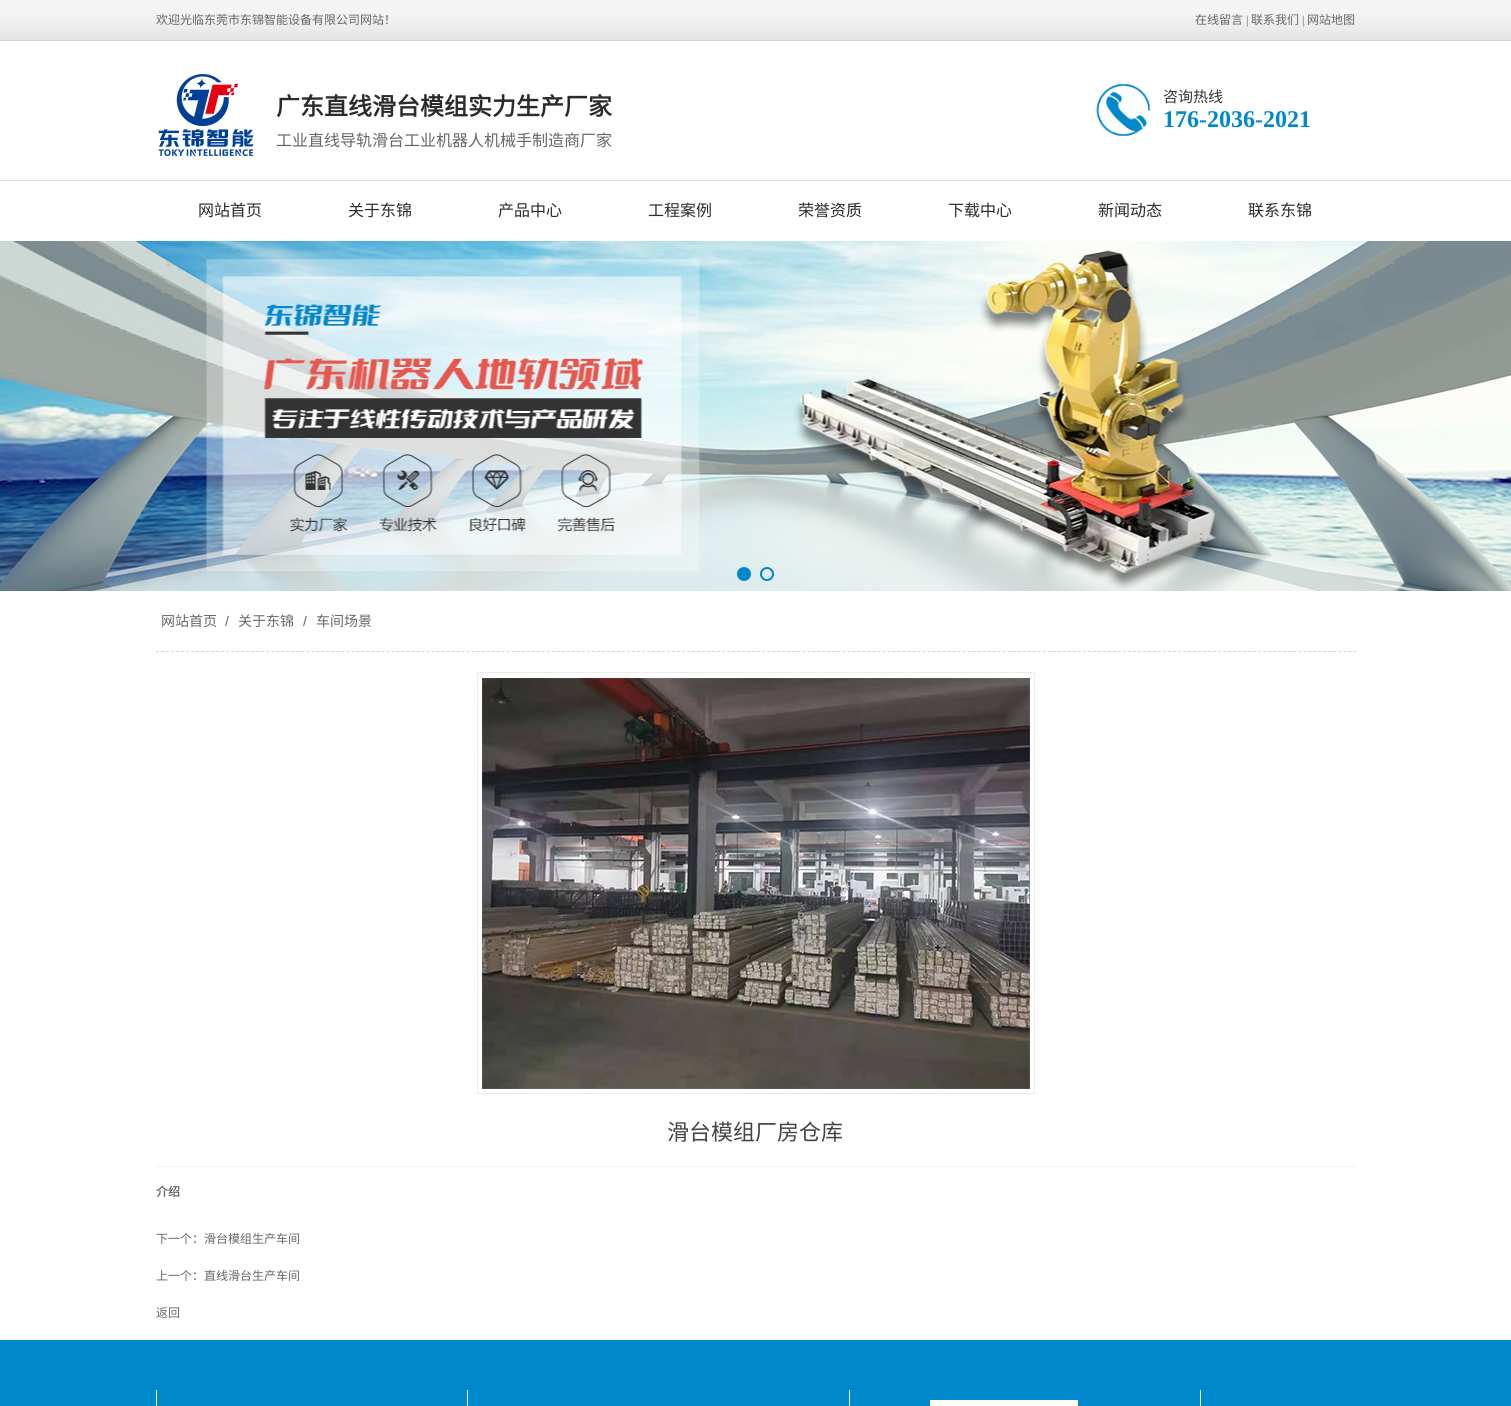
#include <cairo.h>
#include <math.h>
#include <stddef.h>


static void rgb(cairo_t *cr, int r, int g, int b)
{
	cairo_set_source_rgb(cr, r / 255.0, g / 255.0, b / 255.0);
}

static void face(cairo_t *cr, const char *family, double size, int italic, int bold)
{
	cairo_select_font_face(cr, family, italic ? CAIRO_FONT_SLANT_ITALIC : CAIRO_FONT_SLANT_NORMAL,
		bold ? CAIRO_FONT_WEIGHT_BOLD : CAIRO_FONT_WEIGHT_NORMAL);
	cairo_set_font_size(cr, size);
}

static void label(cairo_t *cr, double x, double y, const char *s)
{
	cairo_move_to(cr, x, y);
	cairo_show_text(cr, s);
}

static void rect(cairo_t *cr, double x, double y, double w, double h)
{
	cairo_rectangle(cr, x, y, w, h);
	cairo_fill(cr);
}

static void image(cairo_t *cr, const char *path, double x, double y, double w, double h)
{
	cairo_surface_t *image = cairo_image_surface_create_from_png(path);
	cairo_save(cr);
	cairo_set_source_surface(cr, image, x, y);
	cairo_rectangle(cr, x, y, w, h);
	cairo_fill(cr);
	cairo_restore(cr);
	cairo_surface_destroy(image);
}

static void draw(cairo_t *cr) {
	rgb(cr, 255, 255, 255);
	cairo_paint(cr);
	image(cr, "image0.png", 0, 0, 1511, 181);
	face(cr, "Noto Sans CJK SC", 12, 0, 0);
	rgb(cr, 102, 102, 102);
	label(cr, 156, 24, "欢迎光临东莞市东锦智能设备有限公司网站！");
	label(cr, 1195, 24, "在线留言");
	face(cr, "Liberation Serif", 12, 0, 0);
	label(cr, 1246, 24, "|");
	face(cr, "Noto Sans CJK SC", 12, 0, 0);
	label(cr, 1251, 24, "联系我们");
	face(cr, "Liberation Serif", 12, 0, 0);
	label(cr, 1302, 24, "|");
	face(cr, "Noto Sans CJK SC", 12, 0, 0);
	label(cr, 1307, 24, "网站地图");
	image(cr, "image1.png", 158, 74, 96, 82);
	face(cr, "Noto Sans CJK SC", 24, 0, 1);
	rgb(cr, 43, 43, 43);
	label(cr, 276, 115, "广东直线滑台模组实力生产厂家");
	face(cr, "Noto Sans CJK SC", 16, 0, 0);
	rgb(cr, 102, 102, 102);
	label(cr, 276, 146, "工业直线导轨滑台工业机器人机械手制造商厂家");
	image(cr, "image2.png", 1096, 84, 54, 52);
	face(cr, "Noto Sans CJK SC", 15, 0, 0);
	rgb(cr, 51, 51, 51);
	label(cr, 1163, 102, "咨询热线");
	face(cr, "Liberation Serif", 24, 0, 1);
	rgb(cr, 0, 136, 204);
	label(cr, 1163, 127, "176-2036-2021");
	face(cr, "Noto Sans CJK SC", 16, 0, 0);
	rgb(cr, 43, 43, 43);
	label(cr, 198, 216, "网站首页");
	label(cr, 348, 216, "关于东锦");
	label(cr, 498, 216, "产品中心");
	label(cr, 648, 216, "工程案例");
	label(cr, 798, 216, "荣誉资质");
	label(cr, 948, 216, "下载中心");
	label(cr, 1098, 216, "新闻动态");
	label(cr, 1248, 216, "联系东锦");
	image(cr, "image3.png", 0, 241, 1511, 350);
	rgb(cr, 0, 136, 204);
	cairo_arc(cr, 744, 574, 6, 0, 2 * M_PI);
	cairo_fill_preserve(cr);
	cairo_stroke(cr);
	cairo_arc(cr, 767, 574, 6, 0, 2 * M_PI);
	cairo_stroke(cr);
	cairo_new_path(cr);
	cairo_move_to(cr, 156, 651.5);
	cairo_line_to(cr, 1356, 651.5);
	rgb(cr, 209, 209, 209);
	cairo_set_line_width(cr, 1);
	cairo_set_dash(cr, (double[]){3, 2.01}, 2, 0);
	cairo_stroke(cr);
	face(cr, "Noto Sans CJK SC", 14, 0, 0);
	rgb(cr, 102, 102, 102);
	label(cr, 161, 626, "网站首页");
	face(cr, "Liberation Sans", 14, 0, 0);
	label(cr, 225, 626, "/");
	face(cr, "Noto Sans CJK SC", 14, 0, 0);
	label(cr, 238, 626, "关于东锦");
	face(cr, "Liberation Sans", 14, 0, 0);
	label(cr, 303, 626, "/");
	face(cr, "Noto Sans CJK SC", 14, 0, 0);
	label(cr, 316, 626, "车间场景");
	cairo_rectangle(cr, 477.5, 672.5, 557, 421);
	rgb(cr, 237, 237, 237);
	cairo_set_dash(cr, NULL, 0, 0);
	cairo_stroke(cr);
	image(cr, "image4.png", 482, 677, 548, 412);
	rgb(cr, 242, 242, 242);
	rect(cr, 156, 1166, 1200, 1);
	face(cr, "Noto Sans CJK SC", 22, 0, 0);
	rgb(cr, 68, 68, 68);
	label(cr, 667, 1140, "滑台模组厂房仓库");
	face(cr, "Noto Sans CJK SC", 12, 0, 1);
	rgb(cr, 102, 102, 102);
	label(cr, 156, 1196, "介绍");
	face(cr, "Noto Sans CJK SC", 12, 0, 0);
	label(cr, 156, 1243, "下一个：滑台模组生产车间");
	label(cr, 156, 1280, "上一个：直线滑台生产车间");
	label(cr, 156, 1317, "返回");
	rgb(cr, 0, 136, 204);
	rect(cr, 0, 1340, 1511, 66);
	rgb(cr, 255, 255, 255);
	rect(cr, 467, 1390, 1, 16);
	rect(cr, 156, 1390, 1, 16);
	rect(cr, 849, 1390, 1, 16);
	rect(cr, 1200, 1390, 1, 16);
	rect(cr, 930, 1400, 148, 6);
}

int main(void) {
	cairo_surface_t *surface = cairo_image_surface_create(CAIRO_FORMAT_RGB24, 1511, 1406);
	cairo_t *cr = cairo_create(surface);
	cairo_font_options_t *options = cairo_font_options_create();
	cairo_font_options_set_hint_metrics(options, CAIRO_HINT_METRICS_OFF);
	cairo_font_options_set_hint_style(options, CAIRO_HINT_STYLE_NONE);
	cairo_set_font_options(cr, options);
	cairo_set_miter_limit(cr, 4);
	draw(cr);
	cairo_surface_write_to_png(surface, "render.png");
	cairo_font_options_destroy(options);
	cairo_destroy(cr);
	cairo_surface_destroy(surface);
	return 0;
}
